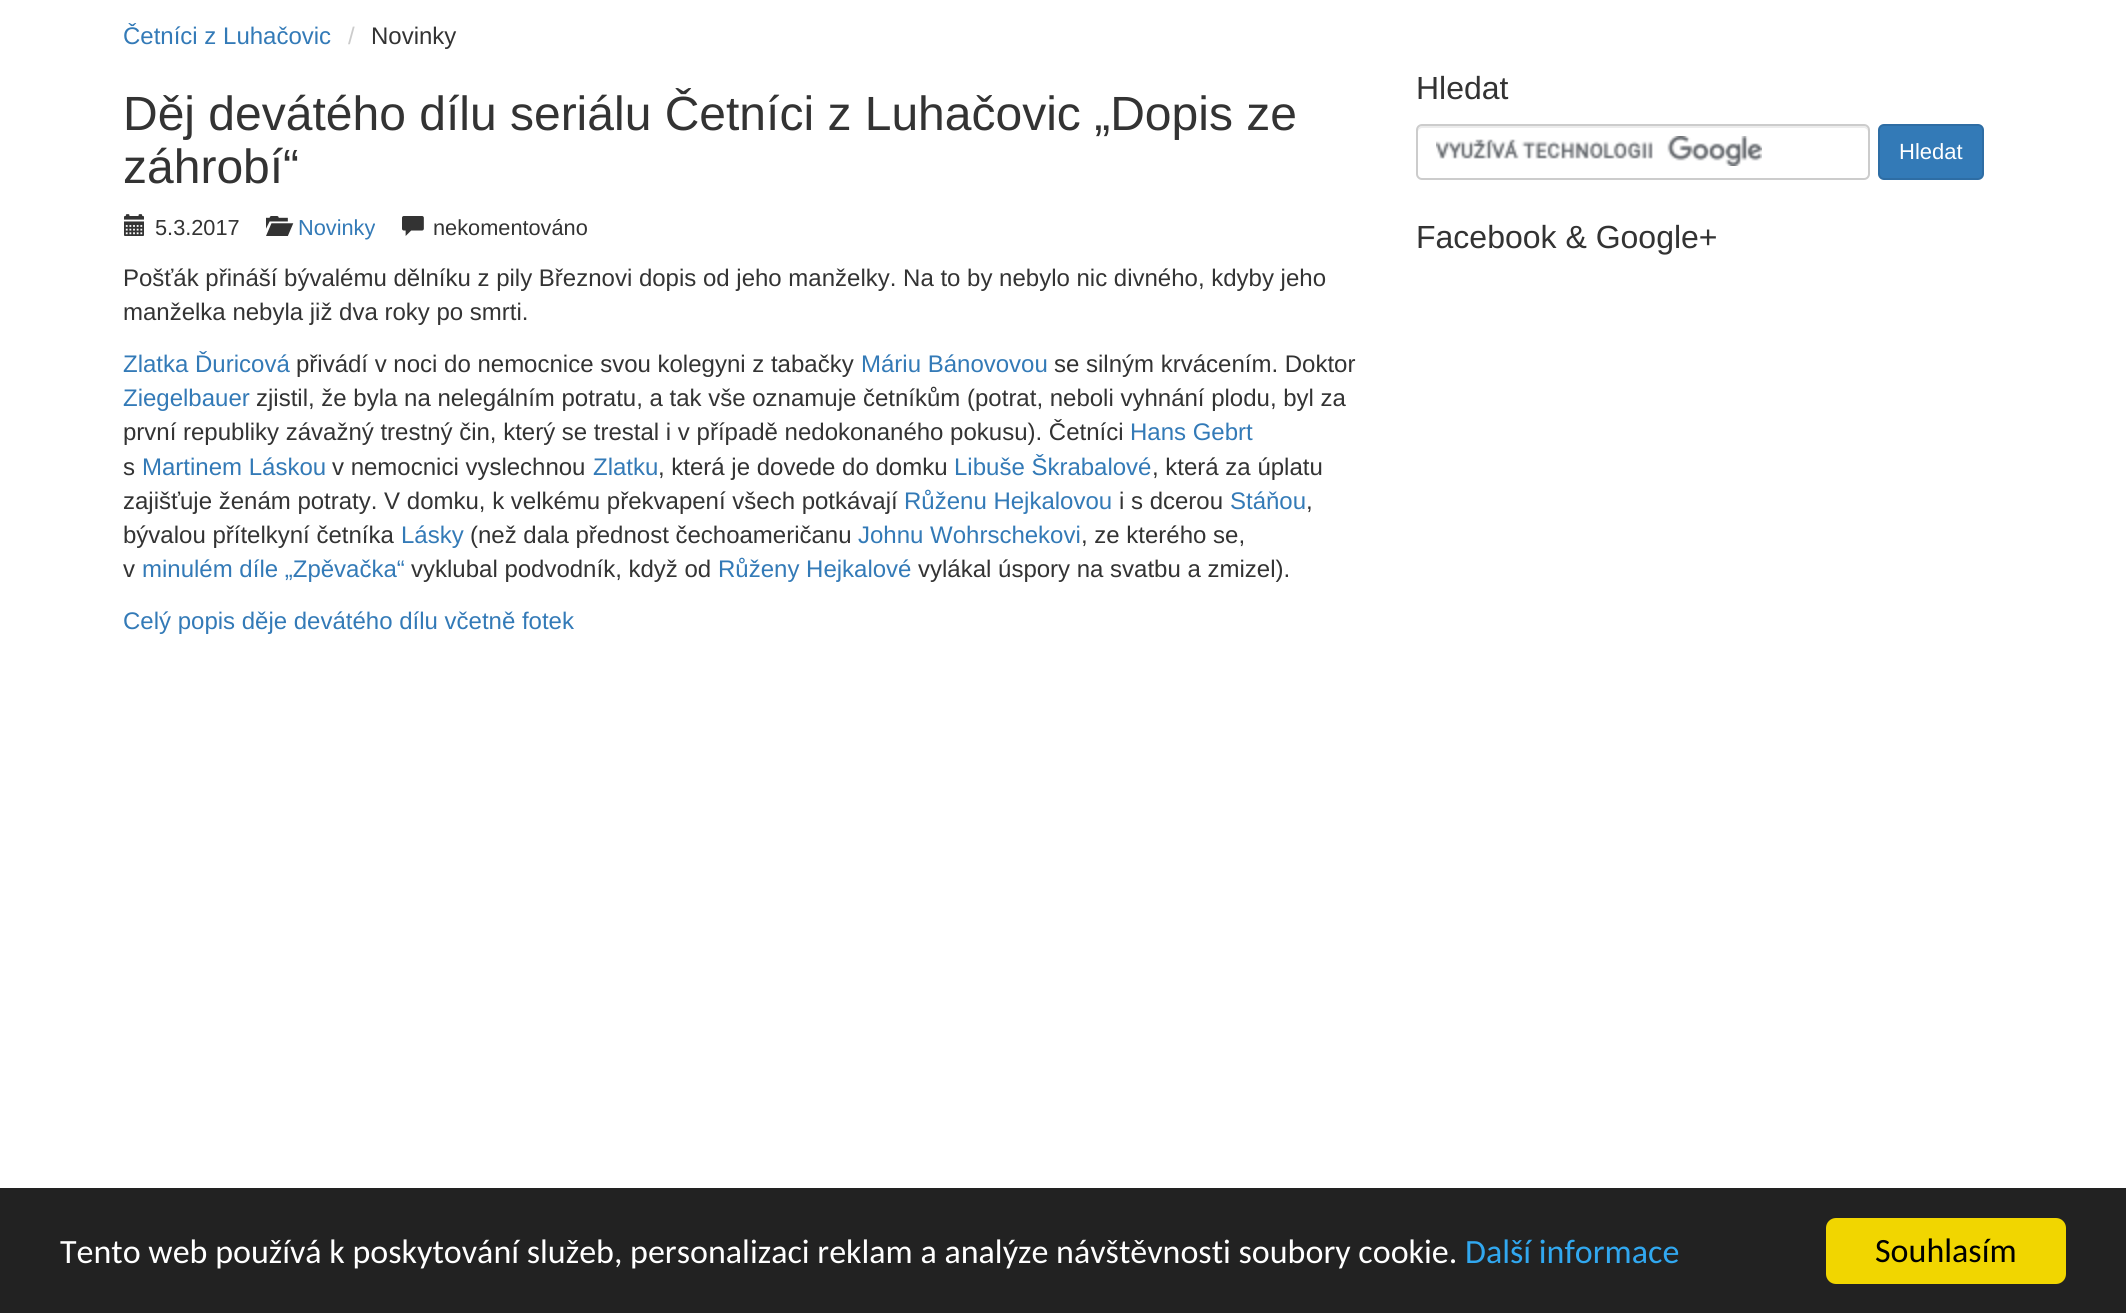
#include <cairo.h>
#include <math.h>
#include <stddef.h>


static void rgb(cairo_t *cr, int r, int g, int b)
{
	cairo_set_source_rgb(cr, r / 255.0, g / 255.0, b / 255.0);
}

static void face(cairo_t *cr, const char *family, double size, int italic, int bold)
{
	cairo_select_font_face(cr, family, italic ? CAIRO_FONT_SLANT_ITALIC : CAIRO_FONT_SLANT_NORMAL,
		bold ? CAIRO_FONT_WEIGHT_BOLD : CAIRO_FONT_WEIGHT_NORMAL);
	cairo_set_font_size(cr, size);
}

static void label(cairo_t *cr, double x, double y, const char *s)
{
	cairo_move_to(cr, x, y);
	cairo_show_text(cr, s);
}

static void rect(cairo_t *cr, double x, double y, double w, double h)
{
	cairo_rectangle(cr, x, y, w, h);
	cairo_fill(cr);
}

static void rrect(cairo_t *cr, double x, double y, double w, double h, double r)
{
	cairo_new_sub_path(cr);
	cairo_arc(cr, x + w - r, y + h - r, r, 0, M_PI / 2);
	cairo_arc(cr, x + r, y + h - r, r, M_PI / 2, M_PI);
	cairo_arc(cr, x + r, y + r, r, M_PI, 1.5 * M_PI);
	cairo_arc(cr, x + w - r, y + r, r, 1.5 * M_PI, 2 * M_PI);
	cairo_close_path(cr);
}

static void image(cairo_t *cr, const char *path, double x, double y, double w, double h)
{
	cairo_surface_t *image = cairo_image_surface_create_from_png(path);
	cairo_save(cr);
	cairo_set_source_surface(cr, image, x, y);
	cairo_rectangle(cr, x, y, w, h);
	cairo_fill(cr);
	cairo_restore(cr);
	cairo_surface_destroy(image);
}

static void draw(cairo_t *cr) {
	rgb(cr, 255, 255, 255);
	cairo_paint(cr);
	face(cr, "Liberation Sans", 24, 0, 0);
	rgb(cr, 51, 122, 183);
	label(cr, 123, 44, "Četníci z Luhačovic");
	rgb(cr, 204, 204, 204);
	label(cr, 348, 44, "/");
	rgb(cr, 51, 51, 51);
	label(cr, 371, 44, "Novinky");
	face(cr, "Liberation Sans", 48, 0, 0);
	label(cr, 123, 130, "Děj devátého dílu seriálu Četníci z Luhačovic „Dopis ze");
	label(cr, 123, 183, "záhrobí“");
	image(cr, "image0.png", 124, 214, 20, 22);
	face(cr, "Liberation Sans", 21.75, 0, 0);
	label(cr, 155, 235, "5.3.2017");
	image(cr, "image1.png", 266, 216, 28, 20);
	rgb(cr, 51, 122, 183);
	label(cr, 298, 235, "Novinky");
	image(cr, "image2.png", 402, 216, 22, 20);
	rgb(cr, 51, 51, 51);
	label(cr, 433, 235, "nekomentováno");
	face(cr, "Liberation Sans", 24, 0, 0);
	label(cr, 123, 286, "Pošťák přináší bývalému dělníku z pily Březnovi dopis od jeho manželky. Na to by nebylo nic divného, kdyby jeho");
	label(cr, 123, 320, "manželka nebyla již dva roky po smrti.");
	rgb(cr, 51, 122, 183);
	label(cr, 123, 372, "Zlatka Ďuricová");
	rgb(cr, 51, 51, 51);
	label(cr, 296, 372, "přivádí v noci do nemocnice svou kolegyni z tabačky");
	rgb(cr, 51, 122, 183);
	label(cr, 861, 372, "Máriu Bánovovou");
	rgb(cr, 51, 51, 51);
	label(cr, 1054, 372, "se silným krvácením. Doktor");
	rgb(cr, 51, 122, 183);
	label(cr, 123, 406, "Ziegelbauer");
	rgb(cr, 51, 51, 51);
	label(cr, 256, 406, "zjistil, že byla na nelegálním potratu, a tak vše oznamuje četníkům (potrat, neboli vyhnání plodu, byl za");
	label(cr, 123, 440, "první republiky závažný trestný čin, který se trestal i v případě nedokonaného pokusu). Četníci");
	rgb(cr, 51, 122, 183);
	label(cr, 1130, 440, "Hans Gebrt");
	rgb(cr, 51, 51, 51);
	label(cr, 123, 475, "s");
	rgb(cr, 51, 122, 183);
	label(cr, 142, 475, "Martinem Láskou");
	rgb(cr, 51, 51, 51);
	label(cr, 332, 475, "v nemocnici vyslechnou");
	rgb(cr, 51, 122, 183);
	label(cr, 593, 475, "Zlatku");
	rgb(cr, 51, 51, 51);
	label(cr, 658, 475, ", která je dovede do domku");
	rgb(cr, 51, 122, 183);
	label(cr, 954, 475, "Libuše Škrabalové");
	rgb(cr, 51, 51, 51);
	label(cr, 1152, 475, ", která za úplatu");
	label(cr, 123, 509, "zajišťuje ženám potraty. V domku, k velkému překvapení všech potkávají");
	rgb(cr, 51, 122, 183);
	label(cr, 904, 509, "Růženu Hejkalovou");
	rgb(cr, 51, 51, 51);
	label(cr, 1119, 509, "i s dcerou");
	rgb(cr, 51, 122, 183);
	label(cr, 1230, 509, "Stáňou");
	rgb(cr, 51, 51, 51);
	label(cr, 1306, 509, ",");
	label(cr, 123, 543, "bývalou přítelkyní četníka");
	rgb(cr, 51, 122, 183);
	label(cr, 401, 543, "Lásky");
	rgb(cr, 51, 51, 51);
	label(cr, 470, 543, "(než dala přednost čechoameričanu");
	rgb(cr, 51, 122, 183);
	label(cr, 858, 543, "Johnu Wohrschekovi");
	rgb(cr, 51, 51, 51);
	label(cr, 1081, 543, ", ze kterého se,");
	label(cr, 123, 577, "v");
	rgb(cr, 51, 122, 183);
	label(cr, 142, 577, "minulém díle „Zpěvačka“");
	rgb(cr, 51, 51, 51);
	label(cr, 411, 577, "vyklubal podvodník, když od");
	rgb(cr, 51, 122, 183);
	label(cr, 718, 577, "Růženy Hejkalové");
	rgb(cr, 51, 51, 51);
	label(cr, 918, 577, "vylákal úspory na svatbu a zmizel).");
	rgb(cr, 51, 122, 183);
	label(cr, 123, 629, "Celý popis děje devátého dílu včetně fotek");
	face(cr, "Liberation Sans", 32, 0, 0);
	rgb(cr, 51, 51, 51);
	label(cr, 1416, 99, "Hledat");
	image(cr, "image3.png", 1436, 136, 326, 30);
	rgb(cr, 236, 236, 236);
	cairo_new_path(cr);
	cairo_move_to(cr, 1422, 128);
	cairo_line_to(cr, 1864, 128);
	cairo_curve_to(cr, 1866, 128, 1868, 130, 1868, 132);
	cairo_line_to(cr, 1868, 130);
	cairo_curve_to(cr, 1868, 128, 1866, 126, 1864, 126);
	cairo_line_to(cr, 1422, 126);
	cairo_curve_to(cr, 1420, 126, 1418, 128, 1418, 130);
	cairo_line_to(cr, 1418, 132);
	cairo_curve_to(cr, 1418, 130, 1420, 128, 1422, 128);
	cairo_close_path(cr);
	cairo_fill(cr);
	rrect(cr, 1417, 125, 452, 54, 5);
	rgb(cr, 204, 204, 204);
	cairo_stroke(cr);
	rgb(cr, 51, 122, 183);
	rrect(cr, 1879, 125, 104, 54, 5);
	cairo_fill_preserve(cr);
	rgb(cr, 46, 109, 164);
	cairo_stroke(cr);
	face(cr, "Liberation Sans", 22, 0, 0);
	rgb(cr, 255, 255, 255);
	label(cr, 1899, 159, "Hledat");
	face(cr, "Liberation Sans", 32, 0, 0);
	rgb(cr, 51, 51, 51);
	label(cr, 1416, 248, "Facebook & Google+");
	rgb(cr, 34, 34, 34);
	rect(cr, 0, 1188, 2126, 125);
	face(cr, "Carlito", 34, 0, 0);
	rgb(cr, 255, 255, 255);
	label(cr, 60, 1263, "Tento web používá k poskytování služeb, personalizaci reklam a analýze návštěvnosti soubory cookie.");
	rgb(cr, 49, 168, 240);
	label(cr, 1465, 1263, "Další informace");
	rgb(cr, 241, 214, 0);
	rrect(cr, 1826, 1218, 240, 66, 10);
	cairo_fill(cr);
	rgb(cr, 0, 0, 0);
	label(cr, 1875, 1262, "Souhlasím");
}

int main(void) {
	cairo_surface_t *surface = cairo_image_surface_create(CAIRO_FORMAT_RGB24, 2126, 1313);
	cairo_t *cr = cairo_create(surface);
	cairo_font_options_t *options = cairo_font_options_create();
	cairo_font_options_set_hint_metrics(options, CAIRO_HINT_METRICS_OFF);
	cairo_font_options_set_hint_style(options, CAIRO_HINT_STYLE_NONE);
	cairo_set_font_options(cr, options);
	cairo_set_miter_limit(cr, 4);
	draw(cr);
	cairo_surface_write_to_png(surface, "render.png");
	cairo_font_options_destroy(options);
	cairo_destroy(cr);
	cairo_surface_destroy(surface);
	return 0;
}
